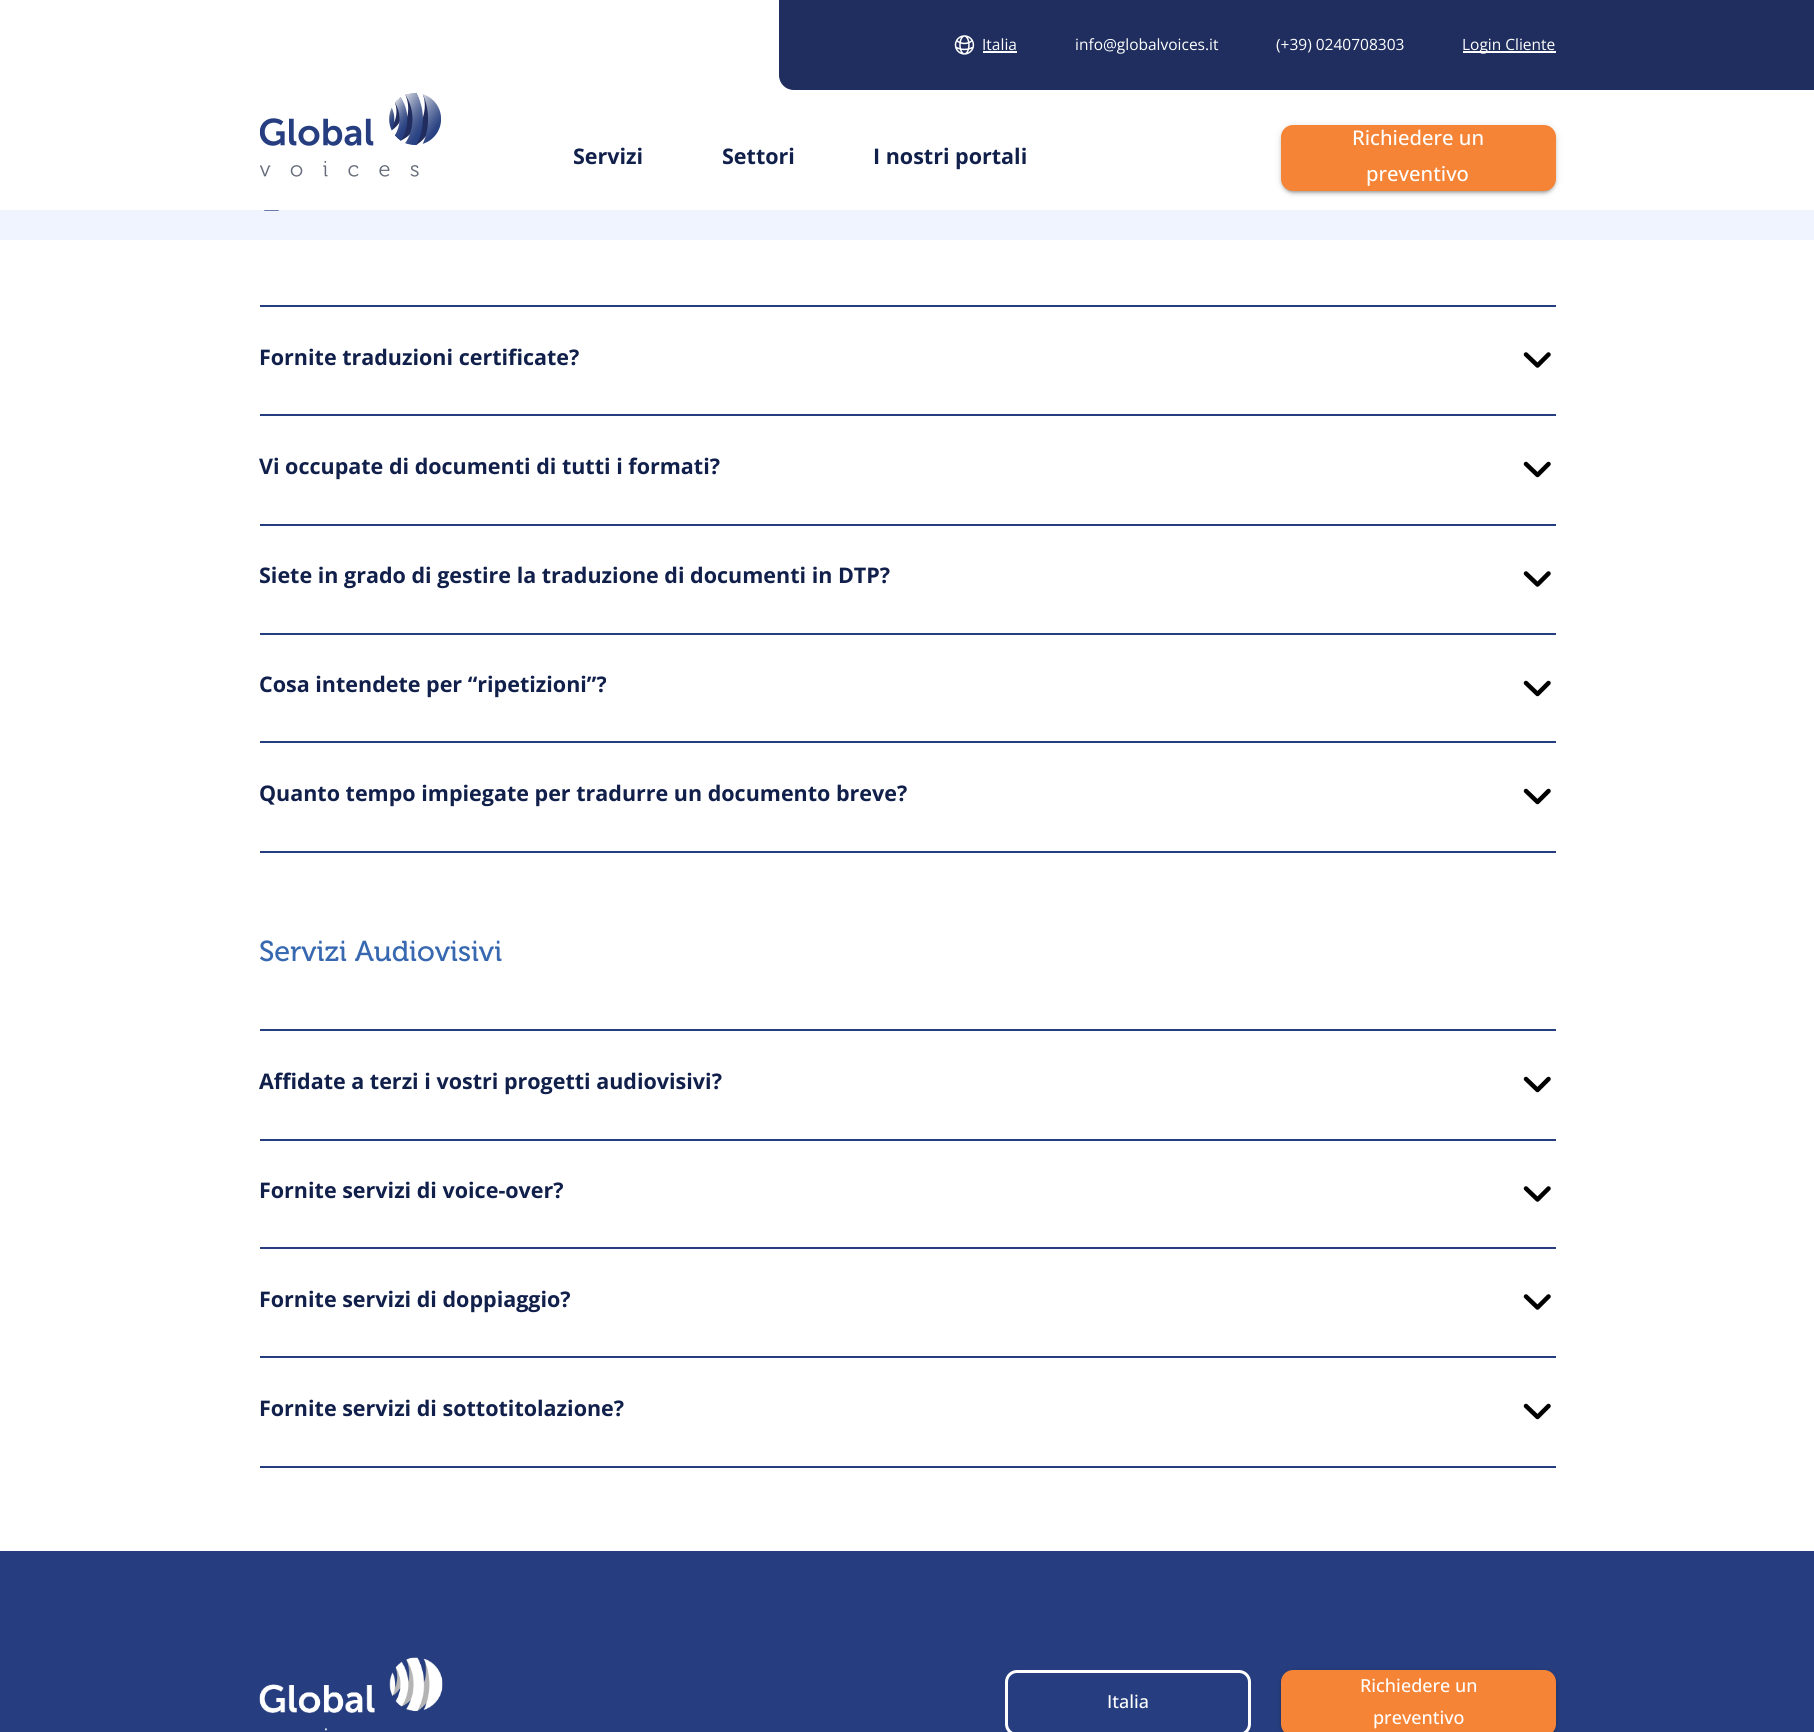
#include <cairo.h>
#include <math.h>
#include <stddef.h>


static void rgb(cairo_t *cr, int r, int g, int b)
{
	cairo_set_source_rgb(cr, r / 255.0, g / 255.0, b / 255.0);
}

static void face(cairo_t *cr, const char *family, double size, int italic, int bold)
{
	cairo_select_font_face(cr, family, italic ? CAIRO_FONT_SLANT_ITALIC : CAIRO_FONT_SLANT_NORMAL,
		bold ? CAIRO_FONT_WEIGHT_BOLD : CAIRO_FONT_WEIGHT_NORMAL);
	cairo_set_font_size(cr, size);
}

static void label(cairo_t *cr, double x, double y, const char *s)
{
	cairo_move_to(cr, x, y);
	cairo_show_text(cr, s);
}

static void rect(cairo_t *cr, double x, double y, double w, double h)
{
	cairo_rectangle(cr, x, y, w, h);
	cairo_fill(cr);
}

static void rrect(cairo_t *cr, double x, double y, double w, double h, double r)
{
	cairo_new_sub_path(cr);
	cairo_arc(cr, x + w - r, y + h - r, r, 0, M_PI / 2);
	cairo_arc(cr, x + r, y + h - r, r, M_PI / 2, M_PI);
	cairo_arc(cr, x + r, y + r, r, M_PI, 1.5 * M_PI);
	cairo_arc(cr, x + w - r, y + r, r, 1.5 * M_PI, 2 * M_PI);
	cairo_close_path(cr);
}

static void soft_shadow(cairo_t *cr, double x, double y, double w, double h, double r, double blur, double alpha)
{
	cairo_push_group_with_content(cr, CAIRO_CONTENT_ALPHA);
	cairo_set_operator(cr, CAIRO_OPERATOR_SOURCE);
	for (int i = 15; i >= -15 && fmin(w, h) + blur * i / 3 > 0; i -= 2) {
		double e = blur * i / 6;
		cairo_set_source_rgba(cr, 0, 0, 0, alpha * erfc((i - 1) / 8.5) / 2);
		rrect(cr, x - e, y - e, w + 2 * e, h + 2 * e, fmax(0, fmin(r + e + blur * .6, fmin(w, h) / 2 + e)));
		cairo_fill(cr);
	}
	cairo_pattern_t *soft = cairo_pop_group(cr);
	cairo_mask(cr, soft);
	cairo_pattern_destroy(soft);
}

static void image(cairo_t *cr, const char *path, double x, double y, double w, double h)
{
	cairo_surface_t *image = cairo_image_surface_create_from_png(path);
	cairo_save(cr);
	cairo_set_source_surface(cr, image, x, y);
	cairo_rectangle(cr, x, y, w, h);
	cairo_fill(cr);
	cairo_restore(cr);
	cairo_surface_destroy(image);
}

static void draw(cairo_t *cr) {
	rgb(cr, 255, 255, 255);
	cairo_paint(cr);
	rgb(cr, 31, 46, 94);
	rect(cr, 1556, 0, 258, 90);
	cairo_new_path(cr);
	cairo_move_to(cr, 779, 0);
	cairo_line_to(cr, 1556, 0);
	cairo_line_to(cr, 1556, 90);
	cairo_line_to(cr, 794, 90);
	cairo_curve_to(cr, 785.5, 90, 779, 83.5, 779, 75);
	cairo_close_path(cr);
	cairo_fill(cr);
	image(cr, "image0.png", 954, 35, 21, 20);
	face(cr, "Open Sans", 15.5, 0, 0);
	rgb(cr, 255, 255, 255);
	label(cr, 982, 50, "Italia");
	rect(cr, 983, 51, 34, 2);
	label(cr, 1075, 50, "info@globalvoices.it");
	label(cr, 1276, 50, "(+39) 0240708303");
	rect(cr, 1463, 51, 93, 2);
	label(cr, 1462, 50, "Login Cliente");
	image(cr, "image1.png", 260, 93, 181, 84);
	face(cr, "Open Sans", 21.5, 0, 1);
	rgb(cr, 17, 31, 75);
	label(cr, 573, 164, "Servizi");
	label(cr, 722, 164, "Settori");
	label(cr, 873, 164, "I nostri portali");
	rgb(cr, 0, 0, 0);
	soft_shadow(cr, 1281, 126, 275, 66, 12, 4, 0.12);
	soft_shadow(cr, 1281, 128, 275, 66, 12, 1.5, 0.14);
	soft_shadow(cr, 1284, 132, 269, 60, 9, 1, 0.2);
	rgb(cr, 245, 132, 54);
	rrect(cr, 1281, 125, 275, 66, 12);
	cairo_fill(cr);
	face(cr, "Open Sans Medium", 20.25, 0, 0);
	rgb(cr, 255, 255, 255);
	label(cr, 1352, 145, "Richiedere un");
	label(cr, 1366, 181, "preventivo");
	rgb(cr, 240, 244, 255);
	rect(cr, 0, 210, 1814, 30);
	image(cr, "image2.png", 263, 210, 17, 1);
	rgb(cr, 38, 62, 128);
	rect(cr, 260, 305, 1296, 2);
	face(cr, "Open Sans", 21.5, 0, 1);
	rgb(cr, 17, 31, 75);
	label(cr, 259, 365, "Fornite traduzioni certificate?");
	cairo_new_path(cr);
	cairo_move_to(cr, 1548.5, 354.5);
	cairo_line_to(cr, 1537.5, 365.5);
	cairo_line_to(cr, 1526, 354.5);
	rgb(cr, 0, 0, 0);
	cairo_set_line_width(cr, 4.5);
	cairo_set_line_cap(cr, CAIRO_LINE_CAP_ROUND);
	cairo_set_line_join(cr, CAIRO_LINE_JOIN_ROUND);
	cairo_stroke(cr);
	rgb(cr, 38, 62, 128);
	rect(cr, 260, 414, 1296, 2);
	rgb(cr, 17, 31, 75);
	label(cr, 259, 474, "Vi occupate di documenti di tutti i formati?");
	cairo_new_path(cr);
	cairo_move_to(cr, 1548.5, 464);
	cairo_line_to(cr, 1537.5, 475);
	cairo_line_to(cr, 1526, 464);
	rgb(cr, 0, 0, 0);
	cairo_stroke(cr);
	rgb(cr, 38, 62, 128);
	rect(cr, 260, 524, 1296, 2);
	rgb(cr, 17, 31, 75);
	label(cr, 259, 583, "Siete in grado di gestire la traduzione di documenti in DTP?");
	cairo_new_path(cr);
	cairo_move_to(cr, 1548.5, 573.5);
	cairo_line_to(cr, 1537.5, 584.5);
	cairo_line_to(cr, 1526, 573.5);
	rgb(cr, 0, 0, 0);
	cairo_stroke(cr);
	rgb(cr, 38, 62, 128);
	rect(cr, 260, 633, 1296, 2);
	rgb(cr, 17, 31, 75);
	label(cr, 259, 692, "Cosa intendete per “ripetizioni”?");
	cairo_new_path(cr);
	cairo_move_to(cr, 1548.5, 683);
	cairo_line_to(cr, 1537.5, 694);
	cairo_line_to(cr, 1526, 683);
	rgb(cr, 0, 0, 0);
	cairo_stroke(cr);
	rgb(cr, 38, 62, 128);
	rect(cr, 260, 741, 1296, 2);
	rect(cr, 260, 851, 1296, 2);
	rgb(cr, 17, 31, 75);
	label(cr, 259, 801, "Quanto tempo impiegate per tradurre un documento breve?");
	cairo_new_path(cr);
	cairo_move_to(cr, 1548.5, 791);
	cairo_line_to(cr, 1537.5, 802);
	cairo_line_to(cr, 1526, 791);
	rgb(cr, 0, 0, 0);
	cairo_stroke(cr);
	face(cr, "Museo", 28.75, 0, 0);
	rgb(cr, 55, 104, 176);
	label(cr, 259, 961, "Servizi Audiovisivi");
	rgb(cr, 38, 62, 128);
	rect(cr, 260, 1029, 1296, 2);
	face(cr, "Open Sans", 21.5, 0, 1);
	rgb(cr, 17, 31, 75);
	label(cr, 259, 1089, "Affidate a terzi i vostri progetti audiovisivi?");
	cairo_new_path(cr);
	cairo_move_to(cr, 1548.5, 1079);
	cairo_line_to(cr, 1537.5, 1090);
	cairo_line_to(cr, 1526, 1079);
	rgb(cr, 0, 0, 0);
	cairo_stroke(cr);
	rgb(cr, 38, 62, 128);
	rect(cr, 260, 1139, 1296, 2);
	rgb(cr, 17, 31, 75);
	label(cr, 259, 1198, "Fornite servizi di voice-over?");
	cairo_new_path(cr);
	cairo_move_to(cr, 1548.5, 1188.5);
	cairo_line_to(cr, 1537.5, 1199.5);
	cairo_line_to(cr, 1526, 1188.5);
	rgb(cr, 0, 0, 0);
	cairo_stroke(cr);
	rgb(cr, 38, 62, 128);
	rect(cr, 260, 1247, 1296, 2);
	rgb(cr, 17, 31, 75);
	label(cr, 259, 1307, "Fornite servizi di doppiaggio?");
	cairo_new_path(cr);
	cairo_move_to(cr, 1548.5, 1296.5);
	cairo_line_to(cr, 1537.5, 1307.5);
	cairo_line_to(cr, 1526, 1296.5);
	rgb(cr, 0, 0, 0);
	cairo_stroke(cr);
	rgb(cr, 38, 62, 128);
	rect(cr, 260, 1356, 1296, 2);
	rect(cr, 260, 1466, 1296, 2);
	rgb(cr, 17, 31, 75);
	label(cr, 259, 1416, "Fornite servizi di sottotitolazione?");
	cairo_new_path(cr);
	cairo_move_to(cr, 1548.5, 1406);
	cairo_line_to(cr, 1537.5, 1417);
	cairo_line_to(cr, 1526, 1406);
	rgb(cr, 0, 0, 0);
	cairo_stroke(cr);
	rgb(cr, 38, 62, 128);
	rect(cr, 0, 1551, 1814, 181);
	image(cr, "image3.png", 259, 1657, 184, 74);
	rrect(cr, 1006.5, 1671.5, 243, 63, 10.5);
	rgb(cr, 255, 255, 255);
	cairo_set_line_width(cr, 3);
	cairo_set_line_cap(cr, CAIRO_LINE_CAP_BUTT);
	cairo_set_line_join(cr, CAIRO_LINE_JOIN_MITER);
	cairo_stroke(cr);
	face(cr, "Open Sans Medium", 18, 0, 0);
	label(cr, 1107, 1708, "Italia");
	rgb(cr, 0, 0, 0);
	soft_shadow(cr, 1281, 1671, 275, 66, 12, 4, 0.12);
	soft_shadow(cr, 1281, 1673, 275, 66, 12, 1.5, 0.14);
	soft_shadow(cr, 1284, 1677, 269, 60, 9, 1, 0.2);
	rgb(cr, 245, 132, 54);
	rrect(cr, 1281, 1670, 275, 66, 12);
	cairo_fill(cr);
	rgb(cr, 255, 255, 255);
	label(cr, 1360, 1692, "Richiedere un");
	label(cr, 1373, 1724, "preventivo");
}

int main(void) {
	cairo_surface_t *surface = cairo_image_surface_create(CAIRO_FORMAT_RGB24, 1814, 1732);
	cairo_t *cr = cairo_create(surface);
	cairo_font_options_t *options = cairo_font_options_create();
	cairo_font_options_set_hint_metrics(options, CAIRO_HINT_METRICS_OFF);
	cairo_font_options_set_hint_style(options, CAIRO_HINT_STYLE_NONE);
	cairo_set_font_options(cr, options);
	cairo_set_miter_limit(cr, 4);
	draw(cr);
	cairo_surface_write_to_png(surface, "render.png");
	cairo_font_options_destroy(options);
	cairo_destroy(cr);
	cairo_surface_destroy(surface);
	return 0;
}
